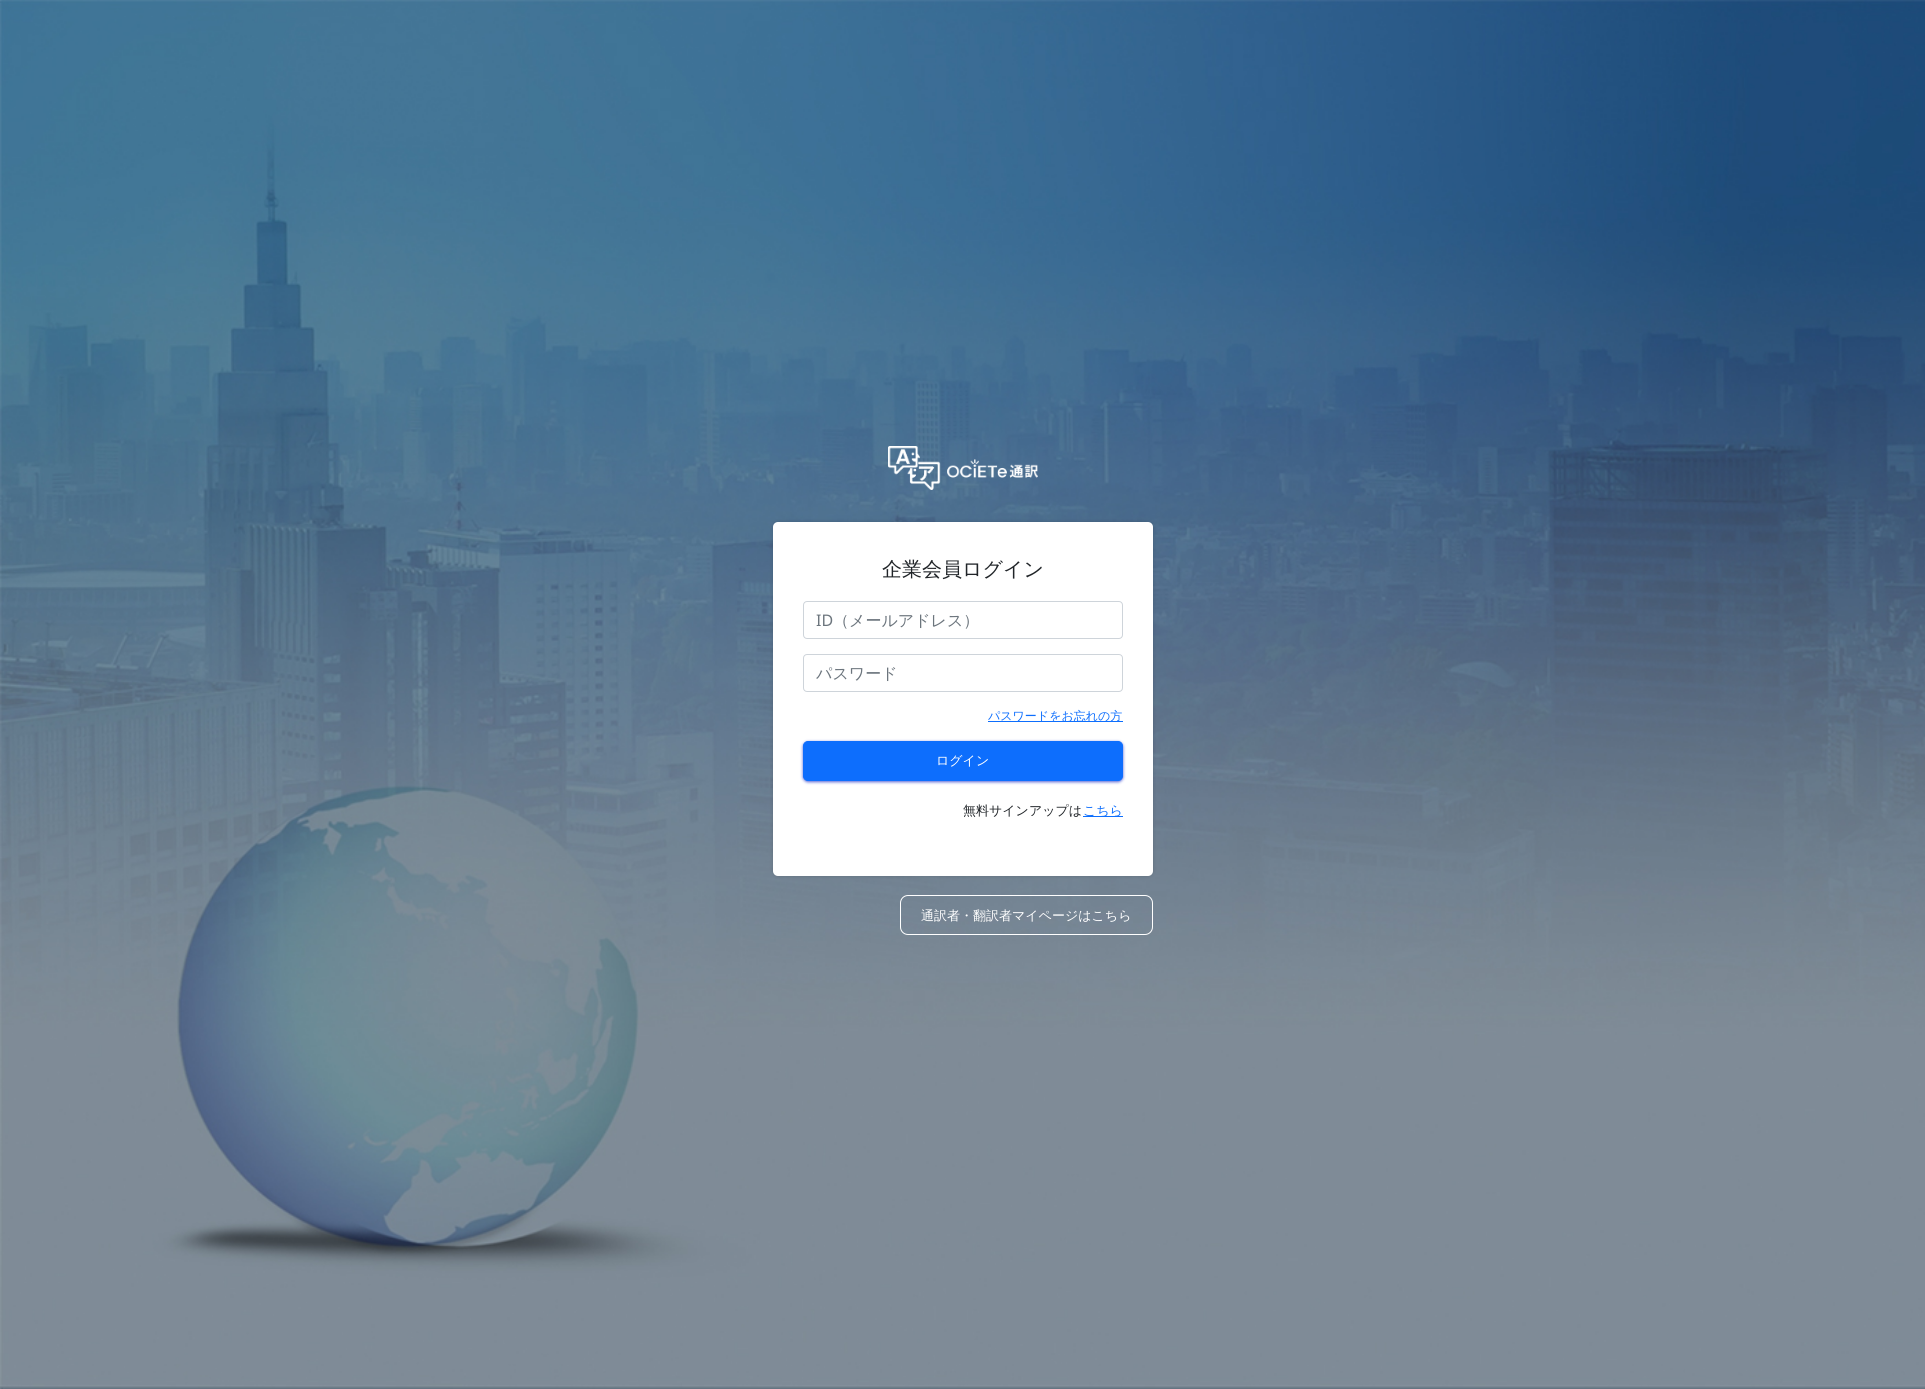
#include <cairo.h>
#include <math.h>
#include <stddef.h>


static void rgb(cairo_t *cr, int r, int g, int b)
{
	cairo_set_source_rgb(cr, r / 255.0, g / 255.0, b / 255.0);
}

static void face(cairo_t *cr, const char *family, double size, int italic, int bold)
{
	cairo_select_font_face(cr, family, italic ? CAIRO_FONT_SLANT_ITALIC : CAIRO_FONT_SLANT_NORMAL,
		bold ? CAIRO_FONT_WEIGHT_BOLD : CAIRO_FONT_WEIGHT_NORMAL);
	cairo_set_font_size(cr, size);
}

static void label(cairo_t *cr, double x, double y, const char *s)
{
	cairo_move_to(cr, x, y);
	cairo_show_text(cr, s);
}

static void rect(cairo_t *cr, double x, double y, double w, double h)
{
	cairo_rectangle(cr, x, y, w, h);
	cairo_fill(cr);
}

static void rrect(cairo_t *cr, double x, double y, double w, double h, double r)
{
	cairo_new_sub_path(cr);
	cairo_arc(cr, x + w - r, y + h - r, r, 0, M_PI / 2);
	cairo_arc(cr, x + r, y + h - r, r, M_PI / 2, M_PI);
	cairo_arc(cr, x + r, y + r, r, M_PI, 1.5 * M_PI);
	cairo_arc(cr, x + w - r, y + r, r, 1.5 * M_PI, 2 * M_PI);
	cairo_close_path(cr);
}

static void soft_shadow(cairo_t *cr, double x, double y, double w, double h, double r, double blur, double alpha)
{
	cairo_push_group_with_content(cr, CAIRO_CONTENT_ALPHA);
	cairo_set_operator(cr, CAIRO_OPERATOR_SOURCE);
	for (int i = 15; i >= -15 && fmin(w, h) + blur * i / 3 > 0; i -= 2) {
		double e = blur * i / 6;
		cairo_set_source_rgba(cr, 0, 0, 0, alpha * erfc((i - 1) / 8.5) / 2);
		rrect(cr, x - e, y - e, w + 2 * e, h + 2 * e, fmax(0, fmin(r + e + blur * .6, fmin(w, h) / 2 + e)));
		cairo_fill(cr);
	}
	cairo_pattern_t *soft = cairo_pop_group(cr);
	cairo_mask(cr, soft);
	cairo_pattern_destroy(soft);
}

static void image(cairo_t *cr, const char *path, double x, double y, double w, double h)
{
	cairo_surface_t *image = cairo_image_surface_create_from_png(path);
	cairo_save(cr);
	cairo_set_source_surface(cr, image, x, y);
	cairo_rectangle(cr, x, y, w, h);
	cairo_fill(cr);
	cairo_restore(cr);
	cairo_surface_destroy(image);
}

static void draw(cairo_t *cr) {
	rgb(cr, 255, 255, 255);
	cairo_paint(cr);
	image(cr, "image0.png", 0, 0, 1925, 1389);
	image(cr, "image1.png", 888, 446, 150, 44);
	rgb(cr, 0, 0, 0);
	soft_shadow(cr, 773, 522, 380, 354, 5, 2, 0.14);
	rgb(cr, 255, 255, 255);
	rrect(cr, 773, 522, 380, 354, 5);
	cairo_fill(cr);
	face(cr, "WenQuanYi Zen Hei Medium", 20, 0, 0);
	rgb(cr, 33, 37, 41);
	label(cr, 882, 576, "企業会員ログイン");
	rrect(cr, 803.5, 601.5, 319, 37, 3.5);
	rgb(cr, 206, 212, 218);
	cairo_set_line_width(cr, 1);
	cairo_stroke(cr);
	face(cr, "Noto Sans", 16, 0, 0);
	rgb(cr, 108, 117, 125);
	label(cr, 816, 626, "ID");
	face(cr, "WenQuanYi Zen Hei Medium", 16, 0, 0);
	label(cr, 833, 626, "（メールアドレス）");
	rrect(cr, 803.5, 654.5, 319, 37, 3.5);
	rgb(cr, 206, 212, 218);
	cairo_stroke(cr);
	rgb(cr, 108, 117, 125);
	label(cr, 816, 679, "パスワード");
	rgb(cr, 13, 110, 253);
	rect(cr, 988, 721, 135, 1);
	face(cr, "WenQuanYi Zen Hei Medium", 12, 0, 0);
	label(cr, 988, 720, "パスワードをお忘れの方");
	rgb(cr, 81, 95, 213);
	soft_shadow(cr, 803, 742, 320, 40, 5, 1.5, 1);
	rgb(cr, 13, 110, 253);
	rrect(cr, 803.5, 741.5, 319, 39, 4.5);
	cairo_fill_preserve(cr);
	cairo_stroke(cr);
	face(cr, "WenQuanYi Zen Hei Medium", 13, 0, 0);
	rgb(cr, 255, 255, 255);
	label(cr, 936, 765, "ログイン");
	rgb(cr, 33, 37, 41);
	label(cr, 963, 815, "無料サインアップは");
	rgb(cr, 13, 110, 253);
	rect(cr, 1083, 816, 40, 1);
	label(cr, 1083, 815, "こちら");
	rrect(cr, 900.5, 895.5, 252, 39, 7.5);
	rgb(cr, 255, 255, 255);
	cairo_stroke(cr);
	label(cr, 921, 920, "通訳者・翻訳者マイページはこちら");
}

int main(void) {
	cairo_surface_t *surface = cairo_image_surface_create(CAIRO_FORMAT_RGB24, 1925, 1389);
	cairo_t *cr = cairo_create(surface);
	cairo_font_options_t *options = cairo_font_options_create();
	cairo_font_options_set_hint_metrics(options, CAIRO_HINT_METRICS_OFF);
	cairo_font_options_set_hint_style(options, CAIRO_HINT_STYLE_NONE);
	cairo_set_font_options(cr, options);
	cairo_set_miter_limit(cr, 4);
	draw(cr);
	cairo_surface_write_to_png(surface, "render.png");
	cairo_font_options_destroy(options);
	cairo_destroy(cr);
	cairo_surface_destroy(surface);
	return 0;
}
